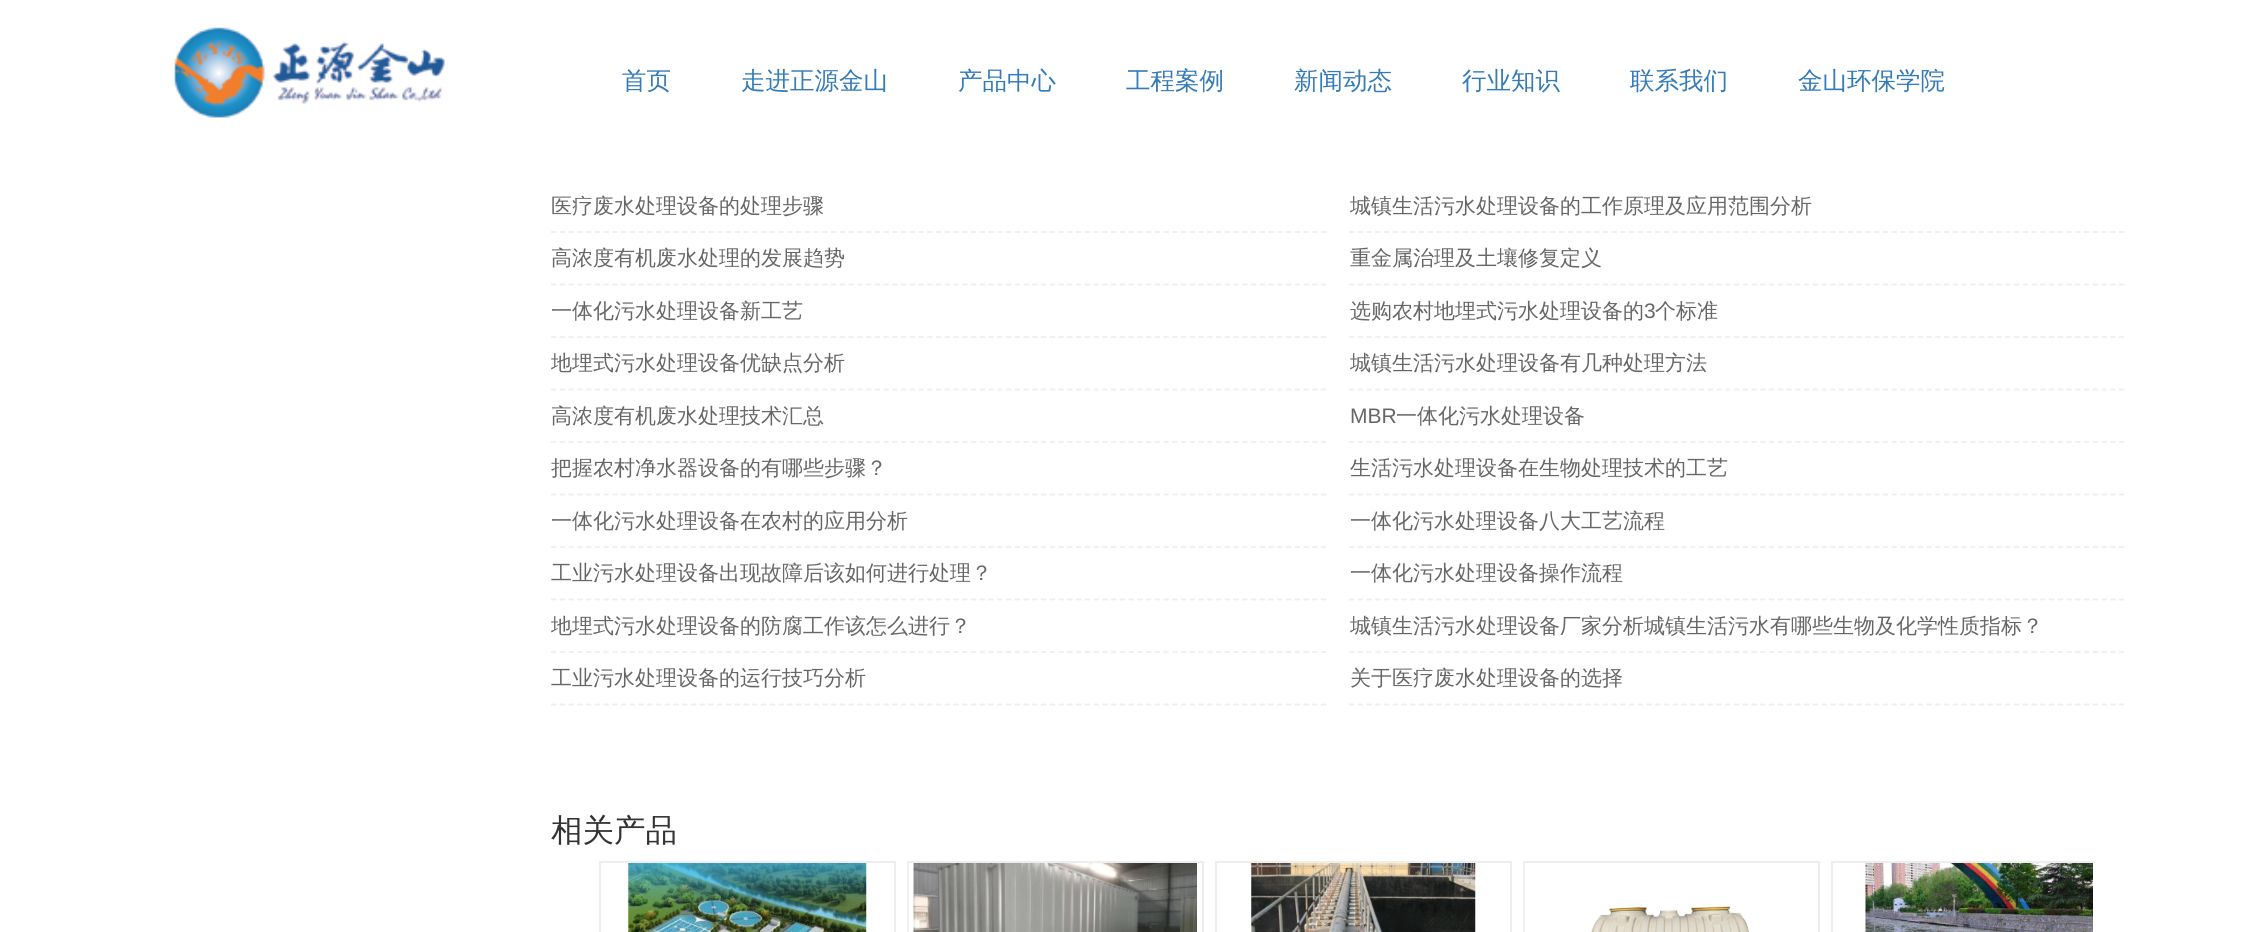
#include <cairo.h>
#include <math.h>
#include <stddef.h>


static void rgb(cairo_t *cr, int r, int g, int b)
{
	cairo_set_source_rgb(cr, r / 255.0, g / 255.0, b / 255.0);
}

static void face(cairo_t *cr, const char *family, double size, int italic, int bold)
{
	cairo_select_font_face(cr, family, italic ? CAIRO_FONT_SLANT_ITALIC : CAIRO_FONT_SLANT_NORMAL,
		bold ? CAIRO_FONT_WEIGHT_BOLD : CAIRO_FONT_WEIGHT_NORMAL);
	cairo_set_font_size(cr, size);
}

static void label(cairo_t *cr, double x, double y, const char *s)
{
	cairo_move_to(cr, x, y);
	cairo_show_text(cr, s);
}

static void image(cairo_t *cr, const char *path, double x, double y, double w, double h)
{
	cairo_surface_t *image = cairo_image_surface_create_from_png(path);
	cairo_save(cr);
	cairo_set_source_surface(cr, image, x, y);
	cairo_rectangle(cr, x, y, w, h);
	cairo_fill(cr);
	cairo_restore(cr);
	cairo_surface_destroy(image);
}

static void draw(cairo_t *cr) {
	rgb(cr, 255, 255, 255);
	cairo_paint(cr);
	image(cr, "image0.png", 174, 27, 271, 91);
	face(cr, "WenQuanYi Zen Hei Medium", 24.5, 0, 0);
	rgb(cr, 51, 122, 183);
	label(cr, 622, 89, "首页");
	label(cr, 741, 89, "走进正源金山");
	label(cr, 958, 89, "产品中心");
	label(cr, 1126, 89, "工程案例");
	label(cr, 1294, 89, "新闻动态");
	label(cr, 1462, 89, "行业知识");
	label(cr, 1630, 89, "联系我们");
	label(cr, 1798, 89, "金山环保学院");
	cairo_new_path(cr);
	cairo_move_to(cr, 551, 232);
	cairo_line_to(cr, 1326.5, 232);
	rgb(cr, 238, 238, 238);
	cairo_set_line_width(cr, 1.8);
	cairo_set_dash(cr, (double[]){5.25, 3.5}, 2, 0);
	cairo_stroke(cr);
	face(cr, "WenQuanYi Zen Hei Medium", 21, 0, 0);
	rgb(cr, 102, 102, 102);
	label(cr, 551, 213, "医疗废水处理设备的处理步骤");
	cairo_new_path(cr);
	cairo_move_to(cr, 1349, 232);
	cairo_line_to(cr, 2124.5, 232);
	rgb(cr, 238, 238, 238);
	cairo_stroke(cr);
	rgb(cr, 102, 102, 102);
	label(cr, 1350, 213, "城镇生活污水处理设备的工作原理及应用范围分析");
	cairo_new_path(cr);
	cairo_move_to(cr, 551, 284.5);
	cairo_line_to(cr, 1326.5, 284.5);
	rgb(cr, 238, 238, 238);
	cairo_stroke(cr);
	rgb(cr, 102, 102, 102);
	label(cr, 551, 265, "高浓度有机废水处理的发展趋势");
	cairo_new_path(cr);
	cairo_move_to(cr, 1349, 284.5);
	cairo_line_to(cr, 2124.5, 284.5);
	rgb(cr, 238, 238, 238);
	cairo_stroke(cr);
	rgb(cr, 102, 102, 102);
	label(cr, 1350, 265, "重金属治理及土壤修复定义");
	cairo_new_path(cr);
	cairo_move_to(cr, 551, 337);
	cairo_line_to(cr, 1326.5, 337);
	rgb(cr, 238, 238, 238);
	cairo_stroke(cr);
	rgb(cr, 102, 102, 102);
	label(cr, 551, 318, "一体化污水处理设备新工艺");
	cairo_new_path(cr);
	cairo_move_to(cr, 1349, 337);
	cairo_line_to(cr, 2124.5, 337);
	rgb(cr, 238, 238, 238);
	cairo_stroke(cr);
	rgb(cr, 102, 102, 102);
	label(cr, 1350, 318, "选购农村地埋式污水处理设备的");
	face(cr, "Liberation Sans", 21, 0, 0);
	label(cr, 1644, 318, "3");
	face(cr, "WenQuanYi Zen Hei Medium", 21, 0, 0);
	label(cr, 1655, 318, "个标准");
	cairo_new_path(cr);
	cairo_move_to(cr, 551, 389.5);
	cairo_line_to(cr, 1326.5, 389.5);
	rgb(cr, 238, 238, 238);
	cairo_stroke(cr);
	rgb(cr, 102, 102, 102);
	label(cr, 551, 370, "地埋式污水处理设备优缺点分析");
	cairo_new_path(cr);
	cairo_move_to(cr, 1349, 389.5);
	cairo_line_to(cr, 2124.5, 389.5);
	rgb(cr, 238, 238, 238);
	cairo_stroke(cr);
	rgb(cr, 102, 102, 102);
	label(cr, 1350, 370, "城镇生活污水处理设备有几种处理方法");
	cairo_new_path(cr);
	cairo_move_to(cr, 551, 442);
	cairo_line_to(cr, 1326.5, 442);
	rgb(cr, 238, 238, 238);
	cairo_stroke(cr);
	rgb(cr, 102, 102, 102);
	label(cr, 551, 423, "高浓度有机废水处理技术汇总");
	cairo_new_path(cr);
	cairo_move_to(cr, 1349, 442);
	cairo_line_to(cr, 2124.5, 442);
	rgb(cr, 238, 238, 238);
	cairo_stroke(cr);
	face(cr, "Liberation Sans", 21, 0, 0);
	rgb(cr, 102, 102, 102);
	label(cr, 1350, 423, "MBR");
	face(cr, "WenQuanYi Zen Hei Medium", 21, 0, 0);
	label(cr, 1396, 423, "一体化污水处理设备");
	cairo_new_path(cr);
	cairo_move_to(cr, 551, 494.5);
	cairo_line_to(cr, 1326.5, 494.5);
	rgb(cr, 238, 238, 238);
	cairo_stroke(cr);
	rgb(cr, 102, 102, 102);
	label(cr, 551, 475, "把握农村净水器设备的有哪些步骤？");
	cairo_new_path(cr);
	cairo_move_to(cr, 1349, 494.5);
	cairo_line_to(cr, 2124.5, 494.5);
	rgb(cr, 238, 238, 238);
	cairo_stroke(cr);
	rgb(cr, 102, 102, 102);
	label(cr, 1350, 475, "生活污水处理设备在生物处理技术的工艺");
	cairo_new_path(cr);
	cairo_move_to(cr, 551, 547);
	cairo_line_to(cr, 1326.5, 547);
	rgb(cr, 238, 238, 238);
	cairo_stroke(cr);
	rgb(cr, 102, 102, 102);
	label(cr, 551, 528, "一体化污水处理设备在农村的应用分析");
	cairo_new_path(cr);
	cairo_move_to(cr, 1349, 547);
	cairo_line_to(cr, 2124.5, 547);
	rgb(cr, 238, 238, 238);
	cairo_stroke(cr);
	rgb(cr, 102, 102, 102);
	label(cr, 1350, 528, "一体化污水处理设备八大工艺流程");
	cairo_new_path(cr);
	cairo_move_to(cr, 551, 599.5);
	cairo_line_to(cr, 1326.5, 599.5);
	rgb(cr, 238, 238, 238);
	cairo_stroke(cr);
	rgb(cr, 102, 102, 102);
	label(cr, 551, 580, "工业污水处理设备出现故障后该如何进行处理？");
	cairo_new_path(cr);
	cairo_move_to(cr, 1349, 599.5);
	cairo_line_to(cr, 2124.5, 599.5);
	rgb(cr, 238, 238, 238);
	cairo_stroke(cr);
	rgb(cr, 102, 102, 102);
	label(cr, 1350, 580, "一体化污水处理设备操作流程");
	cairo_new_path(cr);
	cairo_move_to(cr, 551, 652);
	cairo_line_to(cr, 1326.5, 652);
	rgb(cr, 238, 238, 238);
	cairo_stroke(cr);
	rgb(cr, 102, 102, 102);
	label(cr, 551, 633, "地埋式污水处理设备的防腐工作该怎么进行？");
	cairo_new_path(cr);
	cairo_move_to(cr, 1349, 652);
	cairo_line_to(cr, 2124.5, 652);
	rgb(cr, 238, 238, 238);
	cairo_stroke(cr);
	rgb(cr, 102, 102, 102);
	label(cr, 1350, 633, "城镇生活污水处理设备厂家分析城镇生活污水有哪些生物及化学性质指标？");
	cairo_new_path(cr);
	cairo_move_to(cr, 551, 704.5);
	cairo_line_to(cr, 1326.5, 704.5);
	rgb(cr, 238, 238, 238);
	cairo_stroke(cr);
	rgb(cr, 102, 102, 102);
	label(cr, 551, 685, "工业污水处理设备的运行技巧分析");
	cairo_new_path(cr);
	cairo_move_to(cr, 1349, 704.5);
	cairo_line_to(cr, 2124.5, 704.5);
	rgb(cr, 238, 238, 238);
	cairo_stroke(cr);
	rgb(cr, 102, 102, 102);
	label(cr, 1350, 685, "关于医疗废水处理设备的选择");
	face(cr, "WenQuanYi Zen Hei Medium", 31.5, 0, 0);
	rgb(cr, 51, 51, 51);
	label(cr, 551, 841, "相关产品");
	cairo_rectangle(cr, 600, 862, 295, 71);
	rgb(cr, 238, 238, 238);
	cairo_set_line_width(cr, 2);
	cairo_set_dash(cr, NULL, 0, 0);
	cairo_stroke(cr);
	image(cr, "image1.png", 628, 863, 239, 69);
	cairo_rectangle(cr, 908, 862, 295, 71);
	cairo_stroke(cr);
	image(cr, "image2.png", 913, 863, 284, 69);
	cairo_rectangle(cr, 1216, 862, 295, 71);
	cairo_stroke(cr);
	image(cr, "image3.png", 1251, 863, 225, 69);
	cairo_rectangle(cr, 1524, 862, 295, 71);
	cairo_stroke(cr);
	image(cr, "image4.png", 1591, 904, 159, 28);
	cairo_save(cr);
	cairo_rectangle(cr, 593, 861, 1502, 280);
	cairo_clip(cr);
	cairo_rectangle(cr, 1832, 862, 295, 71);
	cairo_stroke(cr);
	cairo_restore(cr);
	image(cr, "image5.png", 1865, 863, 228, 69);
}

int main(void) {
	cairo_surface_t *surface = cairo_image_surface_create(CAIRO_FORMAT_RGB24, 2248, 932);
	cairo_t *cr = cairo_create(surface);
	cairo_font_options_t *options = cairo_font_options_create();
	cairo_font_options_set_hint_metrics(options, CAIRO_HINT_METRICS_OFF);
	cairo_font_options_set_hint_style(options, CAIRO_HINT_STYLE_NONE);
	cairo_set_font_options(cr, options);
	cairo_set_miter_limit(cr, 4);
	draw(cr);
	cairo_surface_write_to_png(surface, "render.png");
	cairo_font_options_destroy(options);
	cairo_destroy(cr);
	cairo_surface_destroy(surface);
	return 0;
}
